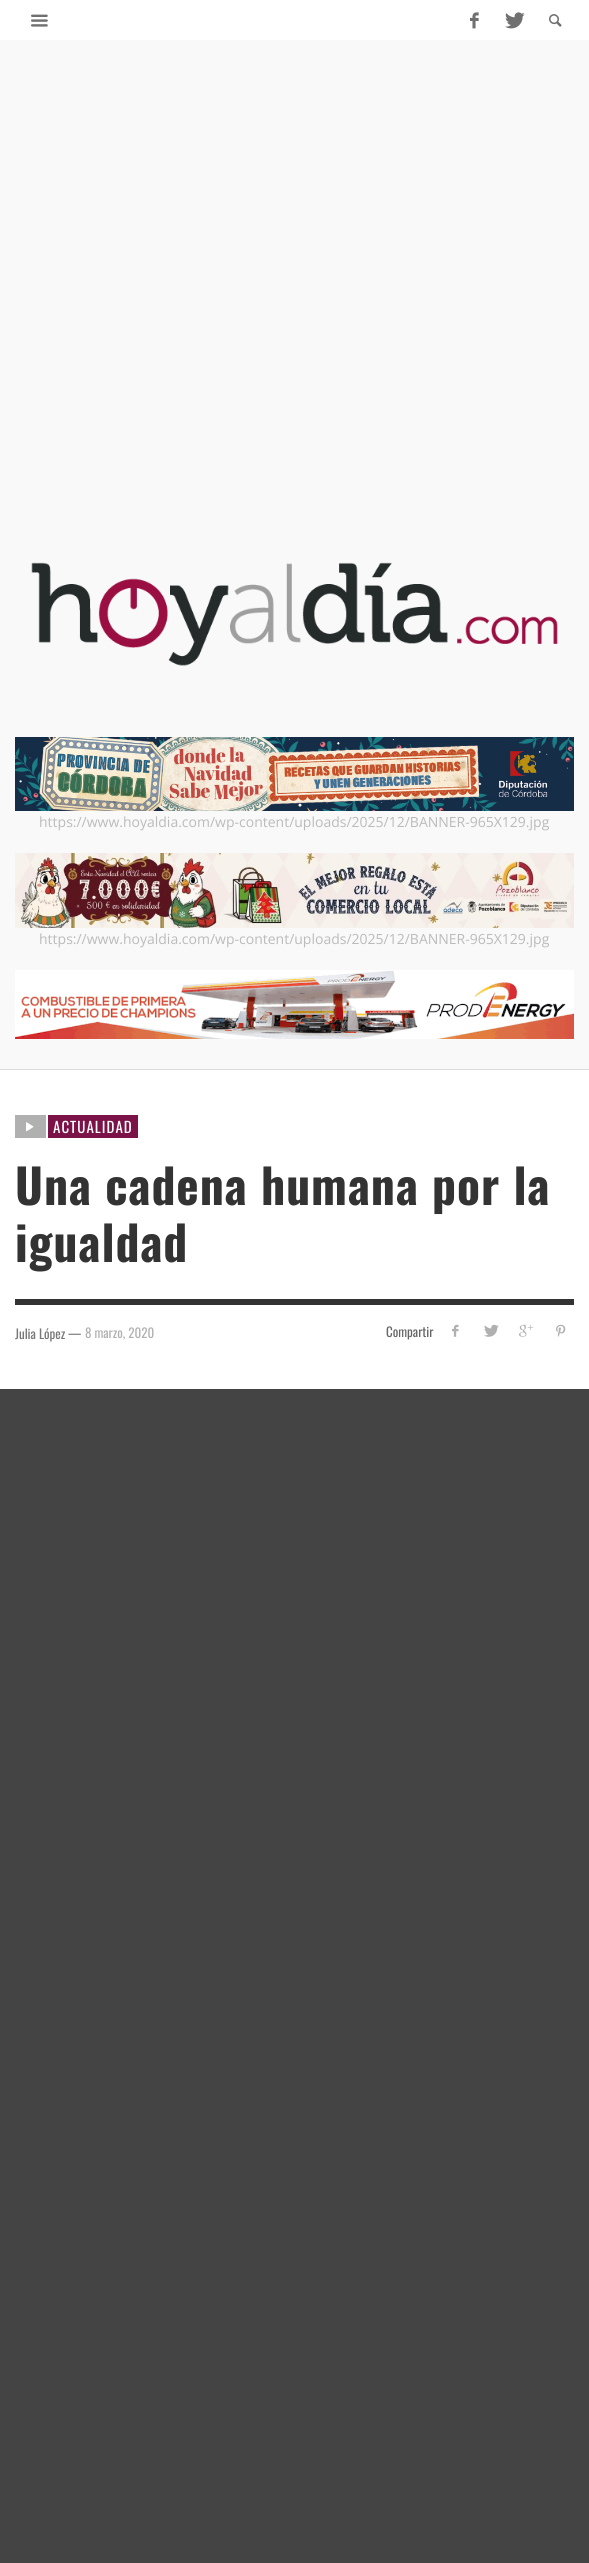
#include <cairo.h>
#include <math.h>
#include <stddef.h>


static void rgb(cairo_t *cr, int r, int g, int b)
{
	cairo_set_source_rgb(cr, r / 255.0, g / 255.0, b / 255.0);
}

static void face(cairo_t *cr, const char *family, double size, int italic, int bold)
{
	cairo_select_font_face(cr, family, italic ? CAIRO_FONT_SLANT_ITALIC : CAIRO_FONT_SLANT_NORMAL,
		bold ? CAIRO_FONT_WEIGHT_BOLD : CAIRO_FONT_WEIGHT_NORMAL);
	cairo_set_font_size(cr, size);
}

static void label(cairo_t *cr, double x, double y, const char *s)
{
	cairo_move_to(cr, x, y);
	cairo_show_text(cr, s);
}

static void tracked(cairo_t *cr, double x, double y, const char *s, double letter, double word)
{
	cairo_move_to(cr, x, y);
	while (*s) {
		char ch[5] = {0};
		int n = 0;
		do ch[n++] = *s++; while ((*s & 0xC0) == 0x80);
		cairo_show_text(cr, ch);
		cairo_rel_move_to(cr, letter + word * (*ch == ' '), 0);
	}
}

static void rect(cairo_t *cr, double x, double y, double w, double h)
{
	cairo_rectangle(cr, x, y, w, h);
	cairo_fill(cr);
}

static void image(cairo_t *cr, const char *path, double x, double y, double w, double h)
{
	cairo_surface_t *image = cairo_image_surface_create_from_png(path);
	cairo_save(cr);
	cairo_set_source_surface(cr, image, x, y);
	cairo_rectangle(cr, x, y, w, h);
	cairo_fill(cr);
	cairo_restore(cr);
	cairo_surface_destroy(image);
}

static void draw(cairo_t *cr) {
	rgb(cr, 68, 68, 68);
	cairo_paint(cr);
	rgb(cr, 255, 255, 255);
	rect(cr, 0, 0, 589, 1389);
	image(cr, "image0.png", 31, 14, 17, 13);
	image(cr, "image1.png", 470, 12, 9, 17);
	image(cr, "image2.png", 505, 12, 20, 17);
	image(cr, "image3.png", 549, 14, 13, 13);
	rgb(cr, 249, 249, 249);
	rect(cr, 0, 40, 589, 1029);
	rgb(cr, 221, 221, 221);
	rect(cr, 0, 1069, 589, 1);
	image(cr, "image4.png", 31, 562, 527, 104);
	image(cr, "image5.png", 15, 737, 559, 74);
	face(cr, "Open Sans", 14, 0, 0);
	rgb(cr, 187, 187, 187);
	label(cr, 39, 827, "https://www.hoyaldia.com/wp-content/uploads/2025/12/BANNER-965X129.jpg");
	image(cr, "image6.png", 15, 853, 559, 75);
	label(cr, 39, 944, "https://www.hoyaldia.com/wp-content/uploads/2025/12/BANNER-965X129.jpg");
	image(cr, "image7.png", 15, 970, 559, 69);
	rgb(cr, 176, 176, 176);
	rect(cr, 15, 1115, 31, 23);
	image(cr, "image8.png", 26, 1122, 8, 10);
	rgb(cr, 124, 19, 72);
	rect(cr, 48, 1115, 90, 23);
	face(cr, "Oswald", 15, 0, 0);
	rgb(cr, 255, 255, 255);
	tracked(cr, 53, 1133, "ACTUALIDAD", 1, 0);
	face(cr, "Oswald", 47.6, 0, 1);
	rgb(cr, 51, 51, 51);
	tracked(cr, 15, 1205, "Una cadena humana por la", 1, 0);
	tracked(cr, 15, 1262, "igualdad", 1, 0);
	rect(cr, 15, 1299, 559, 6);
	face(cr, "Oswald", 13, 0, 0);
	rgb(cr, 119, 119, 119);
	label(cr, 15, 1339, "Julia López");
	rgb(cr, 102, 102, 102);
	label(cr, 68, 1338, "—");
	rgb(cr, 176, 176, 176);
	label(cr, 85, 1338, "8 marzo, 2020");
	rgb(cr, 102, 102, 102);
	label(cr, 386, 1337, "Compartir");
	image(cr, "image9.png", 452, 1324, 7, 13);
	image(cr, "image10.png", 484, 1324, 15, 13);
	image(cr, "image11.png", 519, 1324, 15, 13);
	image(cr, "image12.png", 556, 1324, 10, 13);
}

int main(void) {
	cairo_surface_t *surface = cairo_image_surface_create(CAIRO_FORMAT_RGB24, 589, 2563);
	cairo_t *cr = cairo_create(surface);
	cairo_font_options_t *options = cairo_font_options_create();
	cairo_font_options_set_hint_metrics(options, CAIRO_HINT_METRICS_OFF);
	cairo_font_options_set_hint_style(options, CAIRO_HINT_STYLE_NONE);
	cairo_set_font_options(cr, options);
	cairo_set_miter_limit(cr, 4);
	draw(cr);
	cairo_surface_write_to_png(surface, "render.png");
	cairo_font_options_destroy(options);
	cairo_destroy(cr);
	cairo_surface_destroy(surface);
	return 0;
}
